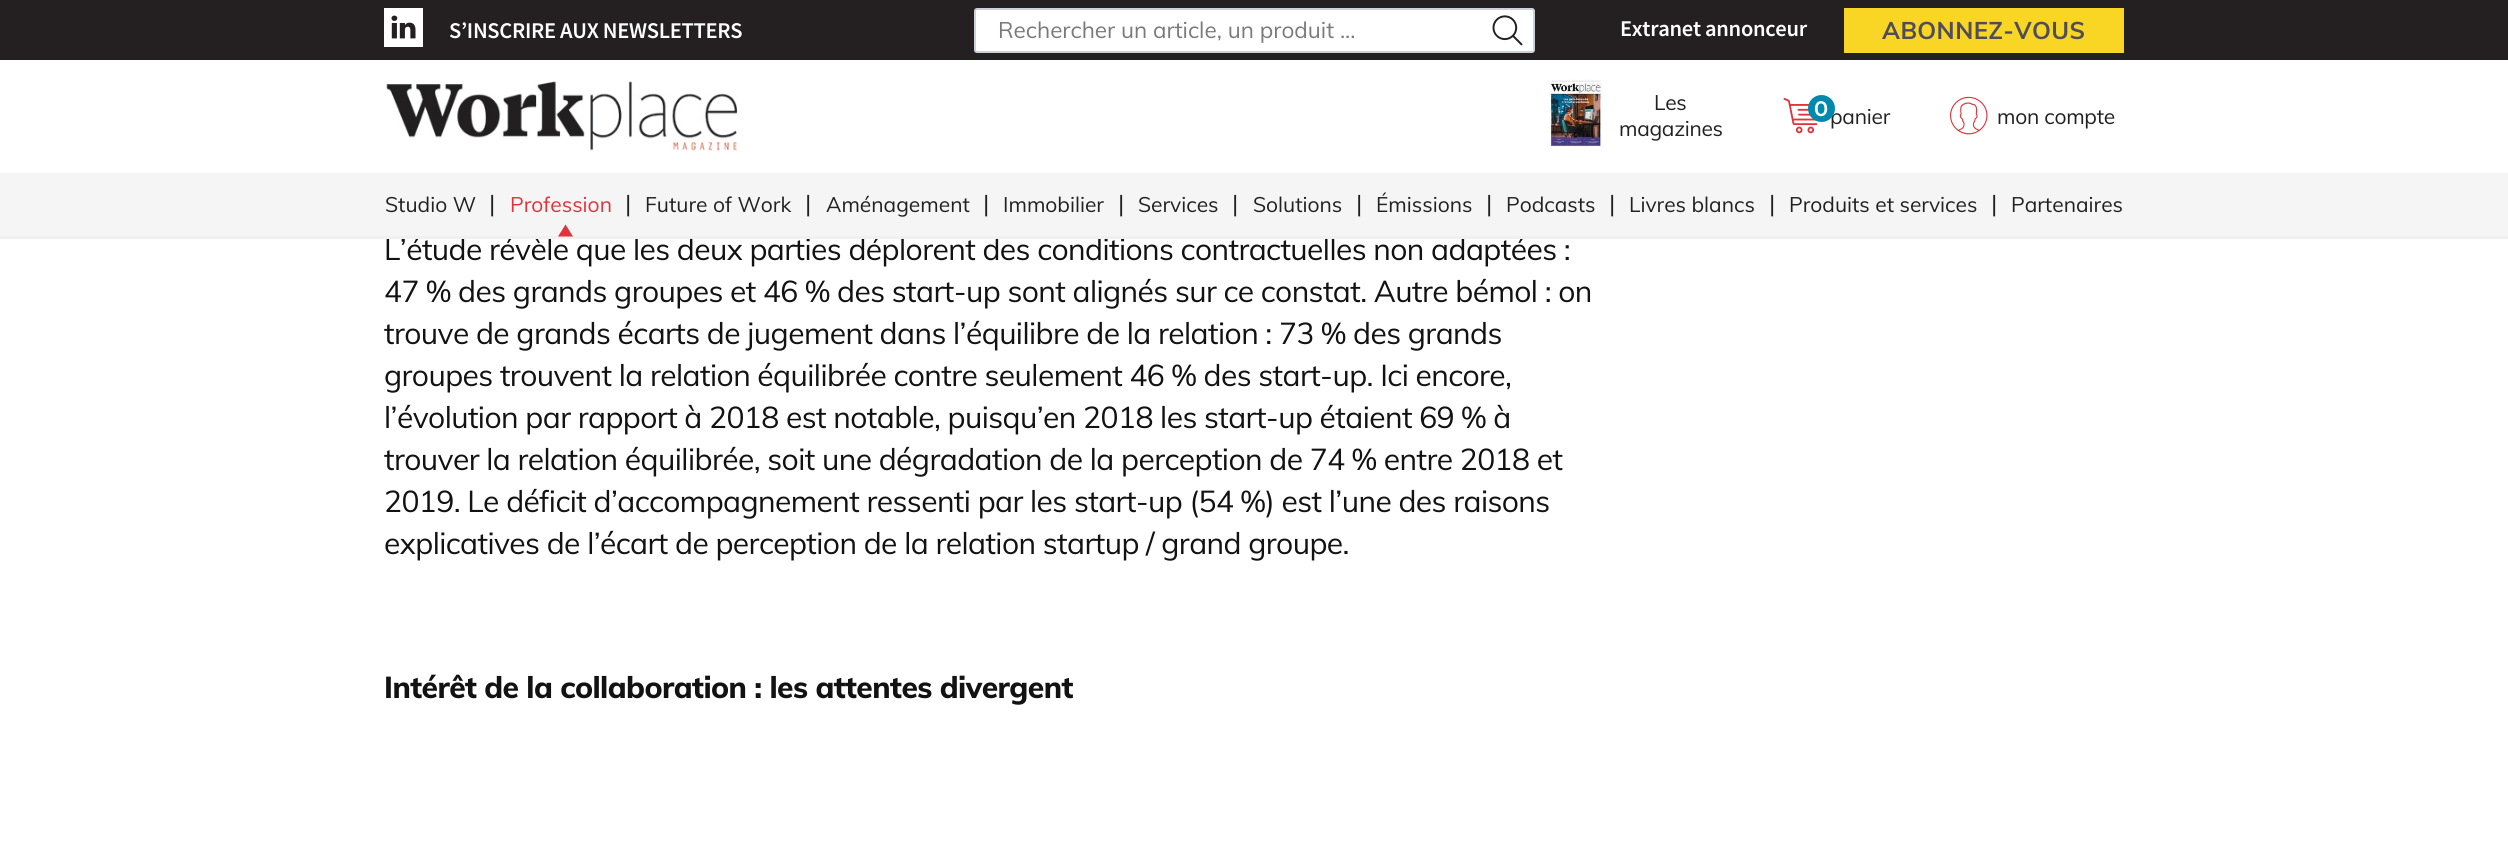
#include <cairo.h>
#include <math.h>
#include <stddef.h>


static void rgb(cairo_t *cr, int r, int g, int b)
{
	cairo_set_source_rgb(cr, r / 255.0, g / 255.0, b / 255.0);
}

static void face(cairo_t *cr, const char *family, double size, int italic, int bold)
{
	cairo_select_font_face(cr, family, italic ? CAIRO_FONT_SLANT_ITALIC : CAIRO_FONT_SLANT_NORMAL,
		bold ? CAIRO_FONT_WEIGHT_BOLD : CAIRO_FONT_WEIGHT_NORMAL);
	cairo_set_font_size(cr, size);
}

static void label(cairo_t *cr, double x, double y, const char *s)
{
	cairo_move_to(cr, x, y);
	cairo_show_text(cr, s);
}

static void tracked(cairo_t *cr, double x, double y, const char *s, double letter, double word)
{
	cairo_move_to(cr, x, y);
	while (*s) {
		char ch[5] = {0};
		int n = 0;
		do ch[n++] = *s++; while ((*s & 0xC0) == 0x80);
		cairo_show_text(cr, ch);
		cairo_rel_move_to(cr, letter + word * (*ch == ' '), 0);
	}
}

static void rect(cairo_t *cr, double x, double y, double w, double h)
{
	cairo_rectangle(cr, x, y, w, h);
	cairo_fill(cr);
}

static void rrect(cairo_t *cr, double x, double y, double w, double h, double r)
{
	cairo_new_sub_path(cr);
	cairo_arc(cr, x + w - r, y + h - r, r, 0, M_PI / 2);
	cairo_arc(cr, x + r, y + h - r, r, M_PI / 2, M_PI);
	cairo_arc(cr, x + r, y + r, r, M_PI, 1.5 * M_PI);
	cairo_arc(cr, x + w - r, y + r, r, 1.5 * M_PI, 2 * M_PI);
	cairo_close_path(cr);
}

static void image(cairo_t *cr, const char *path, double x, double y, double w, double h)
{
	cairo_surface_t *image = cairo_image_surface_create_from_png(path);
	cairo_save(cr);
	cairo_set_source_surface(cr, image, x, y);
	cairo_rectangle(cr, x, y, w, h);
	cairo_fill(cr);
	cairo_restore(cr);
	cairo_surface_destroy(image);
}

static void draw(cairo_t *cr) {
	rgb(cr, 255, 255, 255);
	cairo_paint(cr);
	rgb(cr, 36, 32, 33);
	rect(cr, 0, 0, 2508, 60);
	rgb(cr, 255, 255, 255);
	rect(cr, 384, 8, 39, 39);
	image(cr, "image0.png", 391, 15, 25, 24);
	face(cr, "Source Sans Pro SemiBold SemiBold", 22.5, 0, 0);
	tracked(cr, 449, 38, "S’INSCRIRE AUX NEWSLETTERS", -0.3, 0);
	rrect(cr, 975, 9, 559, 43, 2);
	cairo_fill_preserve(cr);
	rgb(cr, 204, 209, 217);
	cairo_stroke(cr);
	face(cr, "Muli", 22.5, 0, 0);
	rgb(cr, 122, 122, 122);
	label(cr, 998, 38, "Rechercher un article, un produit ...");
	image(cr, "image1.png", 1492, 15, 31, 31);
	face(cr, "Source Sans Pro SemiBold SemiBold", 22.5, 0, 0);
	rgb(cr, 255, 255, 255);
	tracked(cr, 1620, 36, "Extranet annonceur", -0.3, 0);
	rgb(cr, 248, 214, 35);
	rect(cr, 1844, 8, 280, 45);
	face(cr, "Muli", 24, 0, 1);
	rgb(cr, 79, 77, 90);
	tracked(cr, 1882, 39, "ABONNEZ-VOUS", 0.4, 0);
	image(cr, "image2.png", 386, 81, 352, 70);
	image(cr, "image3.png", 1549, 79, 53, 68);
	face(cr, "Muli", 21, 0, 0);
	rgb(cr, 33, 33, 33);
	tracked(cr, 1654, 110, "Les", -0.3, 0);
	tracked(cr, 1619, 136, "magazines", -0.3, 0);
	image(cr, "image4.png", 1783, 97, 35, 37);
	tracked(cr, 1830, 124, "panier", -0.25, 0);
	rgb(cr, 0, 137, 172);
	cairo_new_path(cr);
	cairo_arc(cr, 1821.5, 108.5, 13.5, 0, 2 * M_PI);
	cairo_fill(cr);
	face(cr, "Montserrat SemiBold", 21, 0, 0);
	rgb(cr, 255, 255, 255);
	tracked(cr, 1814, 116, "0", -1, 0);
	image(cr, "image5.png", 1950, 96, 38, 39);
	face(cr, "Muli", 21, 0, 0);
	rgb(cr, 33, 33, 33);
	tracked(cr, 1997, 124, "mon compte", -0.25, 0);
	rgb(cr, 245, 245, 245);
	rect(cr, 0, 173, 2508, 63);
	rgb(cr, 33, 33, 33);
	label(cr, 385, 212, "Studio W");
	face(cr, "Muli", 24, 0, 0);
	label(cr, 489, 212, "|");
	face(cr, "Muli", 21, 0, 0);
	rgb(cr, 223, 52, 58);
	label(cr, 510, 212, "Profession");
	face(cr, "Muli", 30, 0, 0);
	rgb(cr, 18, 18, 18);
	tracked(cr, 384, 260, "L’étude révèle que les deux parties déplorent des conditions contractuelles non adaptées :", -0.57, 0);
	rgb(cr, 240, 240, 240);
	rect(cr, 0, 236, 2508, 3);
	rgb(cr, 223, 52, 58);
	cairo_new_path(cr);
	cairo_move_to(cr, 558, 236.5);
	cairo_line_to(cr, 573, 236.5);
	cairo_line_to(cr, 565.5, 224.5);
	cairo_close_path(cr);
	cairo_fill(cr);
	face(cr, "Muli", 24, 0, 0);
	rgb(cr, 33, 33, 33);
	label(cr, 625, 212, "|");
	face(cr, "Muli", 21, 0, 0);
	label(cr, 645, 212, "Future of Work");
	face(cr, "Muli", 24, 0, 0);
	label(cr, 805, 212, "|");
	face(cr, "Muli", 21, 0, 0);
	label(cr, 826, 212, "Aménagement");
	face(cr, "Muli", 24, 0, 0);
	label(cr, 983, 212, "|");
	face(cr, "Muli", 21, 0, 0);
	label(cr, 1003, 212, "Immobilier");
	face(cr, "Muli", 24, 0, 0);
	label(cr, 1118, 212, "|");
	face(cr, "Muli", 21, 0, 0);
	label(cr, 1138, 212, "Services");
	face(cr, "Muli", 24, 0, 0);
	label(cr, 1232, 212, "|");
	face(cr, "Muli", 21, 0, 0);
	label(cr, 1253, 212, "Solutions");
	face(cr, "Muli", 24, 0, 0);
	label(cr, 1356, 212, "|");
	face(cr, "Muli", 21, 0, 0);
	label(cr, 1376, 212, "Émissions");
	face(cr, "Muli", 24, 0, 0);
	label(cr, 1486, 212, "|");
	face(cr, "Muli", 21, 0, 0);
	label(cr, 1506, 212, "Podcasts");
	face(cr, "Muli", 24, 0, 0);
	label(cr, 1609, 212, "|");
	face(cr, "Muli", 21, 0, 0);
	label(cr, 1629, 212, "Livres blancs");
	face(cr, "Muli", 24, 0, 0);
	label(cr, 1769, 212, "|");
	face(cr, "Muli", 21, 0, 0);
	label(cr, 1789, 212, "Produits et services");
	face(cr, "Muli", 24, 0, 0);
	label(cr, 1991, 212, "|");
	face(cr, "Muli", 21, 0, 0);
	label(cr, 2011, 212, "Partenaires");
	face(cr, "Muli", 30, 0, 0);
	rgb(cr, 18, 18, 18);
	tracked(cr, 384, 302, "47 % des grands groupes et 46 % des start-up sont alignés sur ce constat. Autre bémol : on", -0.57, 0);
	tracked(cr, 384, 344, "trouve de grands écarts de jugement dans l’équilibre de la relation : 73 % des grands", -0.57, 0);
	tracked(cr, 384, 386, "groupes trouvent la relation équilibrée contre seulement 46 % des start-up. Ici encore,", -0.57, 0);
	tracked(cr, 384, 428, "l’évolution par rapport à 2018 est notable, puisqu’en 2018 les start-up étaient 69 % à", -0.57, 0);
	tracked(cr, 384, 470, "trouver la relation équilibrée, soit une dégradation de la perception de 74 % entre 2018 et", -0.57, 0);
	tracked(cr, 384, 512, "2019. Le déficit d’accompagnement ressenti par les start-up (54 %) est l’une des raisons", -0.57, 0);
	tracked(cr, 384, 554, "explicatives de l’écart de perception de la relation startup / grand groupe.", -0.57, 0);
	face(cr, "Muli ExtraBold", 30, 0, 0);
	tracked(cr, 384, 698, "Intérêt de la collaboration : les attentes divergent", -0.57, 0);
}

int main(void) {
	cairo_surface_t *surface = cairo_image_surface_create(CAIRO_FORMAT_RGB24, 2508, 842);
	cairo_t *cr = cairo_create(surface);
	cairo_font_options_t *options = cairo_font_options_create();
	cairo_font_options_set_hint_metrics(options, CAIRO_HINT_METRICS_OFF);
	cairo_font_options_set_hint_style(options, CAIRO_HINT_STYLE_NONE);
	cairo_set_font_options(cr, options);
	cairo_set_miter_limit(cr, 4);
	draw(cr);
	cairo_surface_write_to_png(surface, "render.png");
	cairo_font_options_destroy(options);
	cairo_destroy(cr);
	cairo_surface_destroy(surface);
	return 0;
}
